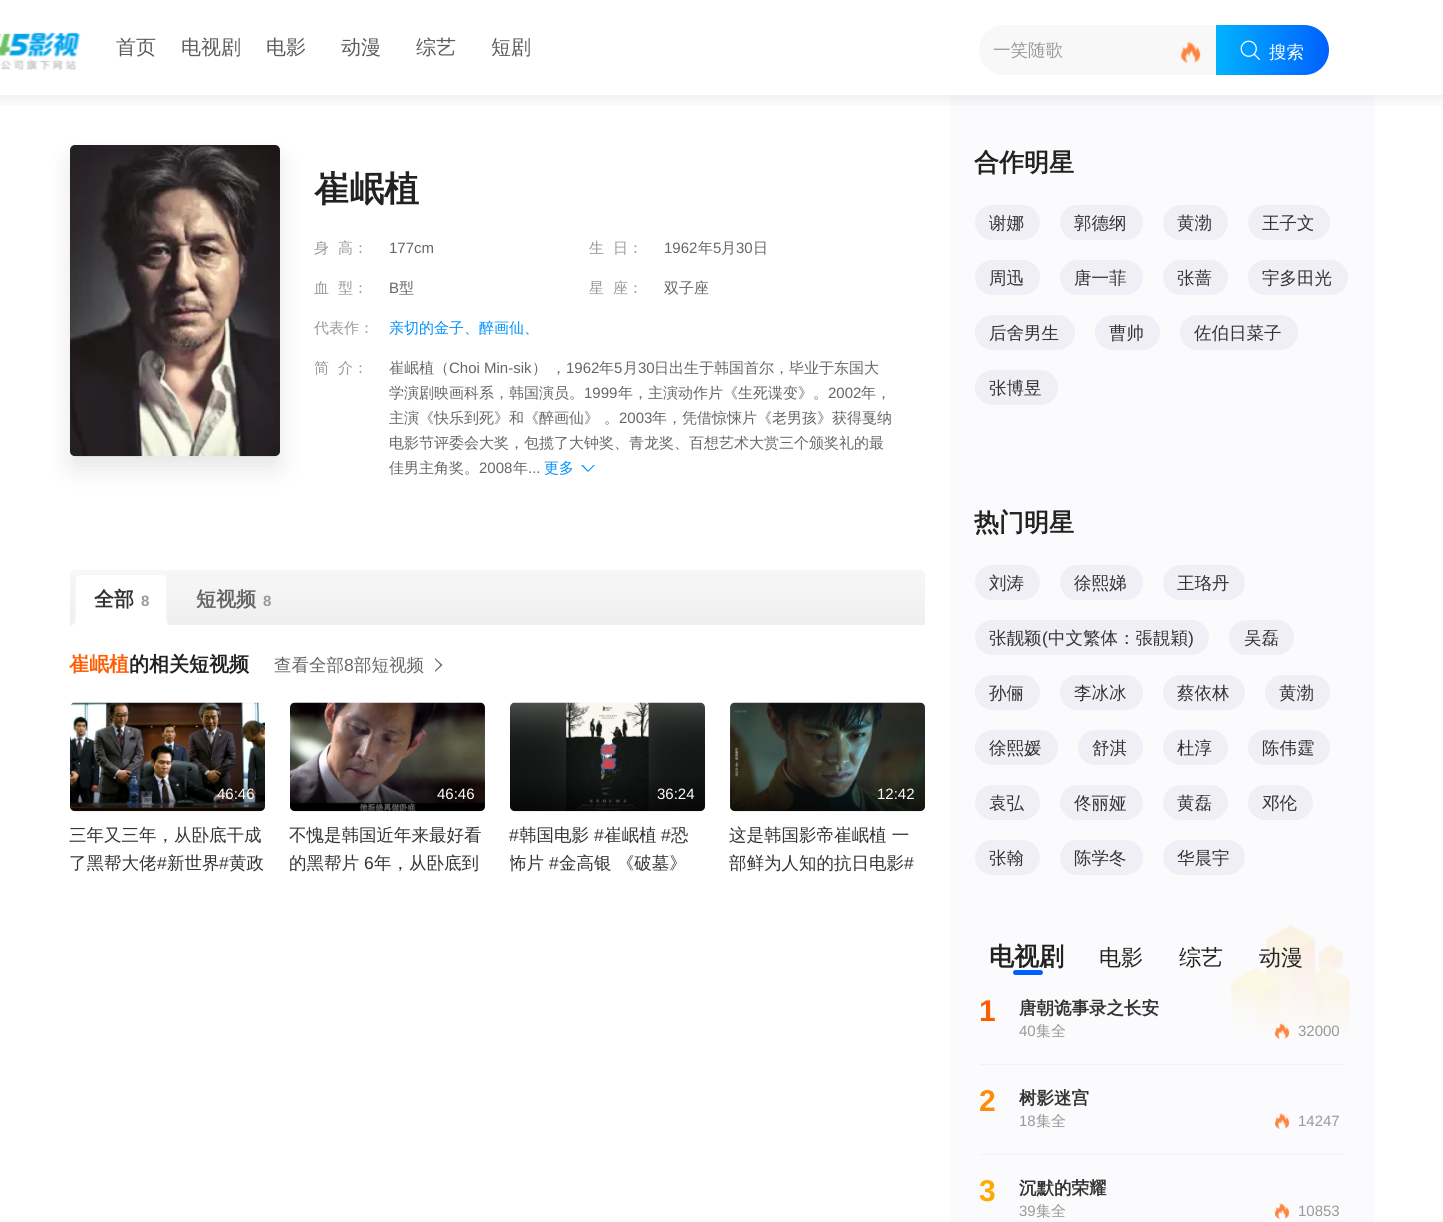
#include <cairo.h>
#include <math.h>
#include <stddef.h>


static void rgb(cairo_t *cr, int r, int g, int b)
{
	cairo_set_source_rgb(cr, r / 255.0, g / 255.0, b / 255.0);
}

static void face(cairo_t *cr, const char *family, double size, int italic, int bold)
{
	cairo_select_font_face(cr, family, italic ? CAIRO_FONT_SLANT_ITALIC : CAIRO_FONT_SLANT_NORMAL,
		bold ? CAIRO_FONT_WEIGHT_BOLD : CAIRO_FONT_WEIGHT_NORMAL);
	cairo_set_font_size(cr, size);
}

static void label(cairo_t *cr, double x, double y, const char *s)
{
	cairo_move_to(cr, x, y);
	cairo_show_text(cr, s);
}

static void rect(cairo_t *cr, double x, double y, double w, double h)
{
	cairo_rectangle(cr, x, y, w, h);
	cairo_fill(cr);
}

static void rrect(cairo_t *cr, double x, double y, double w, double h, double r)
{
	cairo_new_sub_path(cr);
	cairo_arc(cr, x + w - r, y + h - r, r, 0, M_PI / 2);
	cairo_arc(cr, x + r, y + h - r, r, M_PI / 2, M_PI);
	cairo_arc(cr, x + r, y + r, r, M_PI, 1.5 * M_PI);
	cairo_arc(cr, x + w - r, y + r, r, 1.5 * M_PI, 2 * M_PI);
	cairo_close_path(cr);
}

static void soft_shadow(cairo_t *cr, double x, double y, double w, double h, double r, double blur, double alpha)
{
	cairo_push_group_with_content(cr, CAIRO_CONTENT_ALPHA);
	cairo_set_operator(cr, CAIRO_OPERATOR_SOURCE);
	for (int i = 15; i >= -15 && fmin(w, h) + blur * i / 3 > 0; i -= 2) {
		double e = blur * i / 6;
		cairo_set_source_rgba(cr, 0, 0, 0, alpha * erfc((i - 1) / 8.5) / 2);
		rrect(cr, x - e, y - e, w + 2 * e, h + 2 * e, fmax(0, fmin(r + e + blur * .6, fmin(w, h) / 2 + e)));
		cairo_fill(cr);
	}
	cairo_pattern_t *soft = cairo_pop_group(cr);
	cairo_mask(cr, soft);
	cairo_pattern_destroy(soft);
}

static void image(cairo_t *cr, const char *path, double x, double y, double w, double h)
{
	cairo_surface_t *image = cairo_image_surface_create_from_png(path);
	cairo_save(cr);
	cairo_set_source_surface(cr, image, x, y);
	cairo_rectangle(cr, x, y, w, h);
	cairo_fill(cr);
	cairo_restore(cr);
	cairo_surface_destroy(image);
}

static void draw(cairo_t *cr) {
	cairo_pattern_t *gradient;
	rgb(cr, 255, 255, 255);
	cairo_paint(cr);
	rgb(cr, 251, 251, 253);
	rect(cr, 950, 95, 425, 1127);
	cairo_save(cr);
	cairo_rectangle(cr, 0, 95, 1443, 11);
	cairo_clip(cr);
	rgb(cr, 0, 0, 0);
	soft_shadow(cr, -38, 0, 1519, 95, 0, 12.5, 0.1);
	cairo_restore(cr);
	image(cr, "image0.png", 0, 32, 81, 38);
	face(cr, "WenQuanYi Zen Hei Medium", 20, 0, 0);
	rgb(cr, 92, 92, 92);
	label(cr, 116, 54, "首页");
	label(cr, 181, 54, "电视剧");
	label(cr, 266, 54, "电影");
	label(cr, 341, 54, "动漫");
	label(cr, 416, 54, "综艺");
	label(cr, 491, 54, "短剧");
	rgb(cr, 248, 248, 248);
	cairo_new_path(cr);
	cairo_move_to(cr, 1004, 25);
	cairo_line_to(cr, 1216, 25);
	cairo_line_to(cr, 1216, 75);
	cairo_line_to(cr, 1004, 75);
	cairo_curve_to(cr, 990, 75, 979, 64, 979, 50);
	cairo_curve_to(cr, 979, 36, 990, 25, 1004, 25);
	cairo_close_path(cr);
	cairo_fill(cr);
	face(cr, "WenQuanYi Zen Hei Medium", 17.5, 0, 0);
	rgb(cr, 153, 153, 153);
	label(cr, 993, 56, "一笑随歌");
	image(cr, "image1.png", 1181, 42, 20, 21);
	gradient = cairo_pattern_create_linear(1216, 50, 1329, 50);
	cairo_pattern_add_color_stop_rgba(gradient, 0, 0, 0.702, 1, 1);
	cairo_pattern_add_color_stop_rgba(gradient, 1, 0, 0.376, 1, 1);
	cairo_set_source(cr, gradient);
	cairo_pattern_destroy(gradient);
	cairo_new_path(cr);
	cairo_move_to(cr, 1216, 25);
	cairo_line_to(cr, 1304, 25);
	cairo_curve_to(cr, 1318, 25, 1329, 36, 1329, 50);
	cairo_curve_to(cr, 1329, 64, 1318, 75, 1304, 75);
	cairo_line_to(cr, 1216, 75);
	cairo_close_path(cr);
	cairo_fill(cr);
	image(cr, "image2.png", 1240, 40, 20, 20);
	rgb(cr, 255, 255, 255);
	label(cr, 1269, 58, "搜索");
	rgb(cr, 0, 0, 0);
	soft_shadow(cr, 70, 158, 210, 311, 5, 12.5, 0.1);
	image(cr, "image3.png", 70, 145, 210, 312);
	face(cr, "WenQuanYi Zen Hei", 35, 0, 1);
	rgb(cr, 34, 34, 34);
	label(cr, 314, 201, "崔岷植");
	face(cr, "WenQuanYi Zen Hei Medium", 15, 0, 0);
	rgb(cr, 153, 153, 153);
	label(cr, 314, 253, "身");
	label(cr, 338, 253, "高：");
	face(cr, "Liberation Sans", 15, 0, 0);
	rgb(cr, 102, 102, 102);
	label(cr, 389, 253, "177cm");
	face(cr, "WenQuanYi Zen Hei Medium", 15, 0, 0);
	rgb(cr, 153, 153, 153);
	label(cr, 589, 253, "生");
	label(cr, 613, 253, "日：");
	face(cr, "Liberation Sans", 15, 0, 0);
	rgb(cr, 102, 102, 102);
	label(cr, 664, 253, "1962");
	face(cr, "WenQuanYi Zen Hei Medium", 15, 0, 0);
	label(cr, 698, 253, "年");
	face(cr, "Liberation Sans", 15, 0, 0);
	label(cr, 713, 253, "5");
	face(cr, "WenQuanYi Zen Hei Medium", 15, 0, 0);
	label(cr, 721, 253, "月");
	face(cr, "Liberation Sans", 15, 0, 0);
	label(cr, 736, 253, "30");
	face(cr, "WenQuanYi Zen Hei Medium", 15, 0, 0);
	label(cr, 753, 253, "日");
	rgb(cr, 153, 153, 153);
	label(cr, 314, 293, "血");
	label(cr, 338, 293, "型：");
	face(cr, "Liberation Sans", 15, 0, 0);
	rgb(cr, 102, 102, 102);
	label(cr, 389, 293, "B");
	face(cr, "WenQuanYi Zen Hei Medium", 15, 0, 0);
	label(cr, 399, 293, "型");
	rgb(cr, 153, 153, 153);
	label(cr, 589, 293, "星");
	label(cr, 613, 293, "座：");
	rgb(cr, 102, 102, 102);
	label(cr, 664, 293, "双子座");
	rgb(cr, 153, 153, 153);
	label(cr, 314, 333, "代表作：");
	rgb(cr, 0, 145, 255);
	label(cr, 389, 333, "亲切的金子、醉画仙、");
	rgb(cr, 153, 153, 153);
	label(cr, 314, 373, "简");
	label(cr, 338, 373, "介：");
	rgb(cr, 102, 102, 102);
	label(cr, 389, 373, "崔岷植（");
	face(cr, "Liberation Sans", 15, 0, 0);
	label(cr, 449, 373, "Choi Min-sik");
	face(cr, "WenQuanYi Zen Hei Medium", 15, 0, 0);
	label(cr, 532, 373, "）");
	label(cr, 551, 373, "，");
	face(cr, "Liberation Sans", 15, 0, 0);
	label(cr, 566, 373, "1962");
	face(cr, "WenQuanYi Zen Hei Medium", 15, 0, 0);
	label(cr, 599, 373, "年");
	face(cr, "Liberation Sans", 15, 0, 0);
	label(cr, 614, 373, "5");
	face(cr, "WenQuanYi Zen Hei Medium", 15, 0, 0);
	label(cr, 623, 373, "月");
	face(cr, "Liberation Sans", 15, 0, 0);
	label(cr, 638, 373, "30");
	face(cr, "WenQuanYi Zen Hei Medium", 15, 0, 0);
	label(cr, 654, 373, "日出生于韩国首尔，毕业于东国大");
	label(cr, 389, 398, "学演剧映画科系，韩国演员。");
	face(cr, "Liberation Sans", 15, 0, 0);
	label(cr, 584, 398, "1999");
	face(cr, "WenQuanYi Zen Hei Medium", 15, 0, 0);
	label(cr, 618, 398, "年，主演动作片《生死谍变》。");
	face(cr, "Liberation Sans", 15, 0, 0);
	label(cr, 828, 398, "2002");
	face(cr, "WenQuanYi Zen Hei Medium", 15, 0, 0);
	label(cr, 861, 398, "年，");
	label(cr, 389, 423, "主演《快乐到死》和《醉画仙》");
	label(cr, 604, 423, "。");
	face(cr, "Liberation Sans", 15, 0, 0);
	label(cr, 619, 423, "2003");
	face(cr, "WenQuanYi Zen Hei Medium", 15, 0, 0);
	label(cr, 652, 423, "年，凭借惊悚片《老男孩》获得戛纳");
	label(cr, 389, 448, "电影节评委会大奖，包揽了大钟奖、青龙奖、百想艺术大赏三个颁奖礼的最");
	label(cr, 389, 473, "佳男主角奖。");
	face(cr, "Liberation Sans", 15, 0, 0);
	label(cr, 479, 473, "2008");
	face(cr, "WenQuanYi Zen Hei Medium", 15, 0, 0);
	label(cr, 513, 473, "年");
	face(cr, "Liberation Sans", 15, 0, 0);
	label(cr, 528, 473, "...");
	face(cr, "WenQuanYi Zen Hei Medium", 15, 0, 0);
	rgb(cr, 0, 145, 255);
	label(cr, 544, 473, "更多");
	cairo_new_path(cr);
	cairo_move_to(cr, 595, 465);
	cairo_line_to(cr, 588, 472);
	cairo_line_to(cr, 588, 470.5);
	cairo_line_to(cr, 593.5, 465);
	cairo_close_path(cr);
	cairo_move_to(cr, 588, 472);
	cairo_line_to(cr, 581, 465);
	cairo_line_to(cr, 583, 465);
	cairo_line_to(cr, 588, 470.5);
	cairo_close_path(cr);
	cairo_fill(cr);
	gradient = cairo_pattern_create_linear(498, 570, 498, 625);
	cairo_pattern_add_color_stop_rgba(gradient, 0, 0.969, 0.969, 0.969, 1);
	cairo_pattern_add_color_stop_rgba(gradient, 1, 0.937, 0.937, 0.937, 1);
	cairo_set_source(cr, gradient);
	cairo_pattern_destroy(gradient);
	cairo_new_path(cr);
	cairo_move_to(cr, 75, 570);
	cairo_line_to(cr, 920, 570);
	cairo_curve_to(cr, 923, 570, 925, 572, 925, 575);
	cairo_line_to(cr, 925, 625);
	cairo_line_to(cr, 70, 625);
	cairo_line_to(cr, 70, 575);
	cairo_curve_to(cr, 70, 572, 72, 570, 75, 570);
	cairo_close_path(cr);
	cairo_fill(cr);
	image(cr, "image4.png", 72, 575, 9, 50);
	image(cr, "image5.png", 160, 575, 10, 50);
	rgb(cr, 255, 255, 255);
	rect(cr, 81, 575, 79, 50);
	face(cr, "WenQuanYi Zen Hei", 20, 0, 1);
	rgb(cr, 51, 51, 51);
	label(cr, 94, 606, "全部");
	face(cr, "Liberation Sans", 15, 0, 1);
	rgb(cr, 153, 153, 153);
	label(cr, 141, 606, "8");
	face(cr, "WenQuanYi Zen Hei", 20, 0, 1);
	rgb(cr, 102, 102, 102);
	label(cr, 196, 606, "短视频");
	face(cr, "Liberation Sans", 15, 0, 1);
	rgb(cr, 153, 153, 153);
	label(cr, 263, 606, "8");
	face(cr, "WenQuanYi Zen Hei", 20, 0, 1);
	rgb(cr, 255, 92, 0);
	label(cr, 69, 671, "崔岷植");
	rgb(cr, 34, 34, 34);
	label(cr, 129, 671, "的相关短视频");
	face(cr, "WenQuanYi Zen Hei Medium", 17.5, 0, 0);
	rgb(cr, 102, 102, 102);
	label(cr, 274, 671, "查看全部");
	face(cr, "Liberation Sans", 17.5, 0, 0);
	label(cr, 344, 671, "8");
	face(cr, "WenQuanYi Zen Hei Medium", 17.5, 0, 0);
	label(cr, 354, 671, "部短视频");
	cairo_new_path(cr);
	cairo_move_to(cr, 435, 658);
	cairo_line_to(cr, 442.5, 665);
	cairo_line_to(cr, 440.5, 665);
	cairo_line_to(cr, 435, 659.5);
	cairo_close_path(cr);
	cairo_move_to(cr, 442.5, 665);
	cairo_line_to(cr, 435, 672);
	cairo_line_to(cr, 435, 670.5);
	cairo_line_to(cr, 440.5, 665);
	cairo_close_path(cr);
	cairo_fill(cr);
	image(cr, "image6.png", 70, 702, 195, 110);
	gradient = cairo_pattern_create_linear(168, 776, 168, 811);
	cairo_pattern_add_color_stop_rgba(gradient, 0, 0, 0, 0, 0);
	cairo_pattern_add_color_stop_rgba(gradient, 1, 0, 0, 0, 0.6);
	cairo_set_source(cr, gradient);
	cairo_pattern_destroy(gradient);
	rrect(cr, 70, 776, 195, 35, 5);
	cairo_fill(cr);
	face(cr, "Liberation Sans", 15, 0, 0);
	rgb(cr, 255, 255, 255);
	label(cr, 217, 799, "46:46");
	face(cr, "WenQuanYi Zen Hei Medium", 17.5, 0, 0);
	rgb(cr, 51, 51, 51);
	label(cr, 69, 841, "三年又三年，从卧底干成");
	label(cr, 69, 869, "了黑帮大佬");
	face(cr, "Liberation Sans", 17.5, 0, 0);
	label(cr, 157, 869, "#");
	face(cr, "WenQuanYi Zen Hei Medium", 17.5, 0, 0);
	label(cr, 167, 869, "新世界");
	face(cr, "Liberation Sans", 17.5, 0, 0);
	label(cr, 219, 869, "#");
	face(cr, "WenQuanYi Zen Hei Medium", 17.5, 0, 0);
	label(cr, 229, 869, "黄政");
	image(cr, "image7.png", 290, 702, 195, 110);
	gradient = cairo_pattern_create_linear(388, 776, 388, 811);
	cairo_pattern_add_color_stop_rgba(gradient, 0, 0, 0, 0, 0);
	cairo_pattern_add_color_stop_rgba(gradient, 1, 0, 0, 0, 0.6);
	cairo_set_source(cr, gradient);
	cairo_pattern_destroy(gradient);
	rrect(cr, 290, 776, 195, 35, 5);
	cairo_fill(cr);
	face(cr, "Liberation Sans", 15, 0, 0);
	rgb(cr, 255, 255, 255);
	label(cr, 437, 799, "46:46");
	face(cr, "WenQuanYi Zen Hei Medium", 17.5, 0, 0);
	rgb(cr, 51, 51, 51);
	label(cr, 289, 841, "不愧是韩国近年来最好看");
	label(cr, 289, 869, "的黑帮片");
	face(cr, "Liberation Sans", 17.5, 0, 0);
	label(cr, 364, 869, "6");
	face(cr, "WenQuanYi Zen Hei Medium", 17.5, 0, 0);
	label(cr, 374, 869, "年，从卧底到");
	image(cr, "image8.png", 510, 702, 195, 110);
	gradient = cairo_pattern_create_linear(608, 776, 608, 811);
	cairo_pattern_add_color_stop_rgba(gradient, 0, 0, 0, 0, 0);
	cairo_pattern_add_color_stop_rgba(gradient, 1, 0, 0, 0, 0.6);
	cairo_set_source(cr, gradient);
	cairo_pattern_destroy(gradient);
	rrect(cr, 510, 776, 195, 35, 5);
	cairo_fill(cr);
	face(cr, "Liberation Sans", 15, 0, 0);
	rgb(cr, 255, 255, 255);
	label(cr, 657, 799, "36:24");
	face(cr, "Liberation Sans", 17.5, 0, 0);
	rgb(cr, 51, 51, 51);
	label(cr, 509, 841, "#");
	face(cr, "WenQuanYi Zen Hei Medium", 17.5, 0, 0);
	label(cr, 519, 841, "韩国电影");
	face(cr, "Liberation Sans", 17.5, 0, 0);
	label(cr, 594, 841, "#");
	face(cr, "WenQuanYi Zen Hei Medium", 17.5, 0, 0);
	label(cr, 604, 841, "崔岷植");
	face(cr, "Liberation Sans", 17.5, 0, 0);
	label(cr, 661, 841, "#");
	face(cr, "WenQuanYi Zen Hei Medium", 17.5, 0, 0);
	label(cr, 671, 841, "恐");
	cairo_save(cr);
	cairo_rectangle(cr, 510, 811, 195, 65);
	cairo_clip(cr);
	label(cr, 509, 869, "怖片");
	cairo_restore(cr);
	face(cr, "Liberation Sans", 17.5, 0, 0);
	label(cr, 549, 869, "#");
	face(cr, "WenQuanYi Zen Hei Medium", 17.5, 0, 0);
	label(cr, 559, 869, "金高银 《破墓》");
	image(cr, "image9.png", 730, 702, 195, 110);
	gradient = cairo_pattern_create_linear(828, 776, 828, 811);
	cairo_pattern_add_color_stop_rgba(gradient, 0, 0, 0, 0, 0);
	cairo_pattern_add_color_stop_rgba(gradient, 1, 0, 0, 0, 0.6);
	cairo_set_source(cr, gradient);
	cairo_pattern_destroy(gradient);
	rrect(cr, 730, 776, 195, 35, 5);
	cairo_fill(cr);
	face(cr, "Liberation Sans", 15, 0, 0);
	rgb(cr, 255, 255, 255);
	label(cr, 877, 799, "12:42");
	face(cr, "WenQuanYi Zen Hei Medium", 17.5, 0, 0);
	rgb(cr, 51, 51, 51);
	label(cr, 729, 841, "这是韩国影帝崔岷植 一");
	label(cr, 729, 869, "部鲜为人知的抗日电影");
	face(cr, "Liberation Sans", 17.5, 0, 0);
	label(cr, 904, 869, "#");
	face(cr, "WenQuanYi Zen Hei", 25, 0, 1);
	rgb(cr, 34, 34, 34);
	label(cr, 974, 171, "合作明星");
	rgb(cr, 239, 239, 245);
	rrect(cr, 975, 205, 65, 35, 17.5);
	cairo_fill(cr);
	face(cr, "WenQuanYi Zen Hei Medium", 17.5, 0, 0);
	rgb(cr, 51, 51, 51);
	label(cr, 989, 229, "谢娜");
	rgb(cr, 239, 239, 245);
	rrect(cr, 1060, 205, 83, 35, 17.5);
	cairo_fill(cr);
	rgb(cr, 51, 51, 51);
	label(cr, 1074, 229, "郭德纲");
	rgb(cr, 239, 239, 245);
	rrect(cr, 1163, 205, 65, 35, 17.5);
	cairo_fill(cr);
	rgb(cr, 51, 51, 51);
	label(cr, 1177, 229, "黄渤");
	rgb(cr, 239, 239, 245);
	rrect(cr, 1248, 205, 82, 35, 17.5);
	cairo_fill(cr);
	rgb(cr, 51, 51, 51);
	label(cr, 1262, 229, "王子文");
	rgb(cr, 239, 239, 245);
	rrect(cr, 975, 260, 65, 35, 17.5);
	cairo_fill(cr);
	rgb(cr, 51, 51, 51);
	label(cr, 989, 284, "周迅");
	rgb(cr, 239, 239, 245);
	rrect(cr, 1060, 260, 83, 35, 17.5);
	cairo_fill(cr);
	rgb(cr, 51, 51, 51);
	label(cr, 1074, 284, "唐一菲");
	rgb(cr, 239, 239, 245);
	rrect(cr, 1163, 260, 65, 35, 17.5);
	cairo_fill(cr);
	rgb(cr, 51, 51, 51);
	label(cr, 1177, 284, "张蔷");
	rgb(cr, 239, 239, 245);
	rrect(cr, 1248, 260, 100, 35, 17.5);
	cairo_fill(cr);
	rgb(cr, 51, 51, 51);
	label(cr, 1262, 284, "宇多田光");
	rgb(cr, 239, 239, 245);
	rrect(cr, 975, 315, 100, 35, 17.5);
	cairo_fill(cr);
	rgb(cr, 51, 51, 51);
	label(cr, 989, 339, "后舍男生");
	rgb(cr, 239, 239, 245);
	rrect(cr, 1095, 315, 65, 35, 17.5);
	cairo_fill(cr);
	rgb(cr, 51, 51, 51);
	label(cr, 1109, 339, "曹帅");
	rgb(cr, 239, 239, 245);
	rrect(cr, 1180, 315, 118, 35, 17.5);
	cairo_fill(cr);
	rgb(cr, 51, 51, 51);
	label(cr, 1194, 339, "佐伯日菜子");
	rgb(cr, 239, 239, 245);
	rrect(cr, 975, 370, 83, 35, 17.5);
	cairo_fill(cr);
	rgb(cr, 51, 51, 51);
	label(cr, 989, 394, "张博昱");
	face(cr, "WenQuanYi Zen Hei", 25, 0, 1);
	rgb(cr, 34, 34, 34);
	label(cr, 974, 531, "热门明星");
	rgb(cr, 239, 239, 245);
	rrect(cr, 975, 565, 65, 35, 17.5);
	cairo_fill(cr);
	face(cr, "WenQuanYi Zen Hei Medium", 17.5, 0, 0);
	rgb(cr, 51, 51, 51);
	label(cr, 989, 589, "刘涛");
	rgb(cr, 239, 239, 245);
	rrect(cr, 1060, 565, 83, 35, 17.5);
	cairo_fill(cr);
	rgb(cr, 51, 51, 51);
	label(cr, 1074, 589, "徐熙娣");
	rgb(cr, 239, 239, 245);
	rrect(cr, 1163, 565, 82, 35, 17.5);
	cairo_fill(cr);
	rgb(cr, 51, 51, 51);
	label(cr, 1177, 589, "王珞丹");
	rgb(cr, 239, 239, 245);
	rrect(cr, 975, 620, 234, 35, 17.5);
	cairo_fill(cr);
	rgb(cr, 51, 51, 51);
	label(cr, 989, 644, "张靓颖");
	face(cr, "Liberation Sans", 17.5, 0, 0);
	label(cr, 1042, 644, "(");
	face(cr, "WenQuanYi Zen Hei Medium", 17.5, 0, 0);
	label(cr, 1048, 644, "中文繁体：張靚穎");
	face(cr, "Liberation Sans", 17.5, 0, 0);
	label(cr, 1188, 644, ")");
	rgb(cr, 239, 239, 245);
	rrect(cr, 1229, 620, 65, 35, 17.5);
	cairo_fill(cr);
	face(cr, "WenQuanYi Zen Hei Medium", 17.5, 0, 0);
	rgb(cr, 51, 51, 51);
	label(cr, 1244, 644, "吴磊");
	rgb(cr, 239, 239, 245);
	rrect(cr, 975, 675, 65, 35, 17.5);
	cairo_fill(cr);
	rgb(cr, 51, 51, 51);
	label(cr, 989, 699, "孙俪");
	rgb(cr, 239, 239, 245);
	rrect(cr, 1060, 675, 83, 35, 17.5);
	cairo_fill(cr);
	rgb(cr, 51, 51, 51);
	label(cr, 1074, 699, "李冰冰");
	rgb(cr, 239, 239, 245);
	rrect(cr, 1163, 675, 82, 35, 17.5);
	cairo_fill(cr);
	rgb(cr, 51, 51, 51);
	label(cr, 1177, 699, "蔡依林");
	rgb(cr, 239, 239, 245);
	rrect(cr, 1265, 675, 65, 35, 17.5);
	cairo_fill(cr);
	rgb(cr, 51, 51, 51);
	label(cr, 1279, 699, "黄渤");
	rgb(cr, 239, 239, 245);
	rrect(cr, 975, 730, 83, 35, 17.5);
	cairo_fill(cr);
	rgb(cr, 51, 51, 51);
	label(cr, 989, 754, "徐熙媛");
	rgb(cr, 239, 239, 245);
	rrect(cr, 1078, 730, 65, 35, 17.5);
	cairo_fill(cr);
	rgb(cr, 51, 51, 51);
	label(cr, 1092, 754, "舒淇");
	rgb(cr, 239, 239, 245);
	rrect(cr, 1163, 730, 65, 35, 17.5);
	cairo_fill(cr);
	rgb(cr, 51, 51, 51);
	label(cr, 1177, 754, "杜淳");
	rgb(cr, 239, 239, 245);
	rrect(cr, 1248, 730, 82, 35, 17.5);
	cairo_fill(cr);
	rgb(cr, 51, 51, 51);
	label(cr, 1262, 754, "陈伟霆");
	rgb(cr, 239, 239, 245);
	rrect(cr, 975, 785, 65, 35, 17.5);
	cairo_fill(cr);
	rgb(cr, 51, 51, 51);
	label(cr, 989, 809, "袁弘");
	rgb(cr, 239, 239, 245);
	rrect(cr, 1060, 785, 83, 35, 17.5);
	cairo_fill(cr);
	rgb(cr, 51, 51, 51);
	label(cr, 1074, 809, "佟丽娅");
	rgb(cr, 239, 239, 245);
	rrect(cr, 1163, 785, 65, 35, 17.5);
	cairo_fill(cr);
	rgb(cr, 51, 51, 51);
	label(cr, 1177, 809, "黄磊");
	rgb(cr, 239, 239, 245);
	rrect(cr, 1248, 785, 65, 35, 17.5);
	cairo_fill(cr);
	rgb(cr, 51, 51, 51);
	label(cr, 1262, 809, "邓伦");
	rgb(cr, 239, 239, 245);
	rrect(cr, 975, 840, 65, 35, 17.5);
	cairo_fill(cr);
	rgb(cr, 51, 51, 51);
	label(cr, 989, 864, "张翰");
	rgb(cr, 239, 239, 245);
	rrect(cr, 1060, 840, 83, 35, 17.5);
	cairo_fill(cr);
	rgb(cr, 51, 51, 51);
	label(cr, 1074, 864, "陈学冬");
	rgb(cr, 239, 239, 245);
	rrect(cr, 1163, 840, 82, 35, 17.5);
	cairo_fill(cr);
	rgb(cr, 51, 51, 51);
	label(cr, 1177, 864, "华晨宇");
	image(cr, "image10.png", 1231, 925, 119, 107);
	face(cr, "WenQuanYi Zen Hei", 25, 0, 1);
	rgb(cr, 34, 34, 34);
	label(cr, 989, 965, "电视剧");
	rgb(cr, 0, 96, 255);
	rrect(cr, 1013, 970, 30, 5, 2.5);
	cairo_fill(cr);
	face(cr, "WenQuanYi Zen Hei Medium", 22, 0, 0);
	rgb(cr, 34, 34, 34);
	label(cr, 1099, 965, "电影");
	label(cr, 1179, 965, "综艺");
	label(cr, 1259, 965, "动漫");
	rgb(cr, 240, 242, 247);
	rect(cr, 980, 1064, 365, 1);
	face(cr, "Liberation Sans", 30, 0, 1);
	rgb(cr, 255, 92, 0);
	label(cr, 979, 1021, "1");
	face(cr, "WenQuanYi Zen Hei", 17.5, 0, 1);
	rgb(cr, 51, 51, 51);
	label(cr, 1019, 1014, "唐朝诡事录之长安");
	face(cr, "Liberation Sans", 15, 0, 0);
	rgb(cr, 153, 153, 153);
	label(cr, 1019, 1036, "40");
	face(cr, "WenQuanYi Zen Hei Medium", 15, 0, 0);
	label(cr, 1036, 1036, "集全");
	image(cr, "image11.png", 1275, 1023, 15, 16);
	face(cr, "Liberation Sans", 15, 0, 0);
	label(cr, 1298, 1036, "32000");
	rgb(cr, 240, 242, 247);
	rect(cr, 980, 1154, 365, 1);
	face(cr, "Liberation Sans", 30, 0, 1);
	rgb(cr, 255, 140, 7);
	label(cr, 979, 1111, "2");
	face(cr, "WenQuanYi Zen Hei", 17.5, 0, 1);
	rgb(cr, 51, 51, 51);
	label(cr, 1019, 1104, "树影迷宫");
	face(cr, "Liberation Sans", 15, 0, 0);
	rgb(cr, 153, 153, 153);
	label(cr, 1019, 1126, "18");
	face(cr, "WenQuanYi Zen Hei Medium", 15, 0, 0);
	label(cr, 1036, 1126, "集全");
	image(cr, "image12.png", 1275, 1113, 15, 16);
	face(cr, "Liberation Sans", 15, 0, 0);
	label(cr, 1298, 1126, "14247");
	face(cr, "Liberation Sans", 30, 0, 1);
	rgb(cr, 254, 170, 2);
	label(cr, 979, 1201, "3");
	face(cr, "WenQuanYi Zen Hei", 17.5, 0, 1);
	rgb(cr, 51, 51, 51);
	label(cr, 1019, 1194, "沉默的荣耀");
	face(cr, "Liberation Sans", 15, 0, 0);
	rgb(cr, 153, 153, 153);
	label(cr, 1019, 1216, "39");
	face(cr, "WenQuanYi Zen Hei Medium", 15, 0, 0);
	label(cr, 1036, 1216, "集全");
	image(cr, "image12.png", 1275, 1203, 15, 16);
	face(cr, "Liberation Sans", 15, 0, 0);
	label(cr, 1298, 1216, "10853");
}

int main(void) {
	cairo_surface_t *surface = cairo_image_surface_create(CAIRO_FORMAT_RGB24, 1443, 1222);
	cairo_t *cr = cairo_create(surface);
	cairo_font_options_t *options = cairo_font_options_create();
	cairo_font_options_set_hint_metrics(options, CAIRO_HINT_METRICS_OFF);
	cairo_font_options_set_hint_style(options, CAIRO_HINT_STYLE_NONE);
	cairo_set_font_options(cr, options);
	cairo_set_miter_limit(cr, 4);
	draw(cr);
	cairo_surface_write_to_png(surface, "render.png");
	cairo_font_options_destroy(options);
	cairo_destroy(cr);
	cairo_surface_destroy(surface);
	return 0;
}
